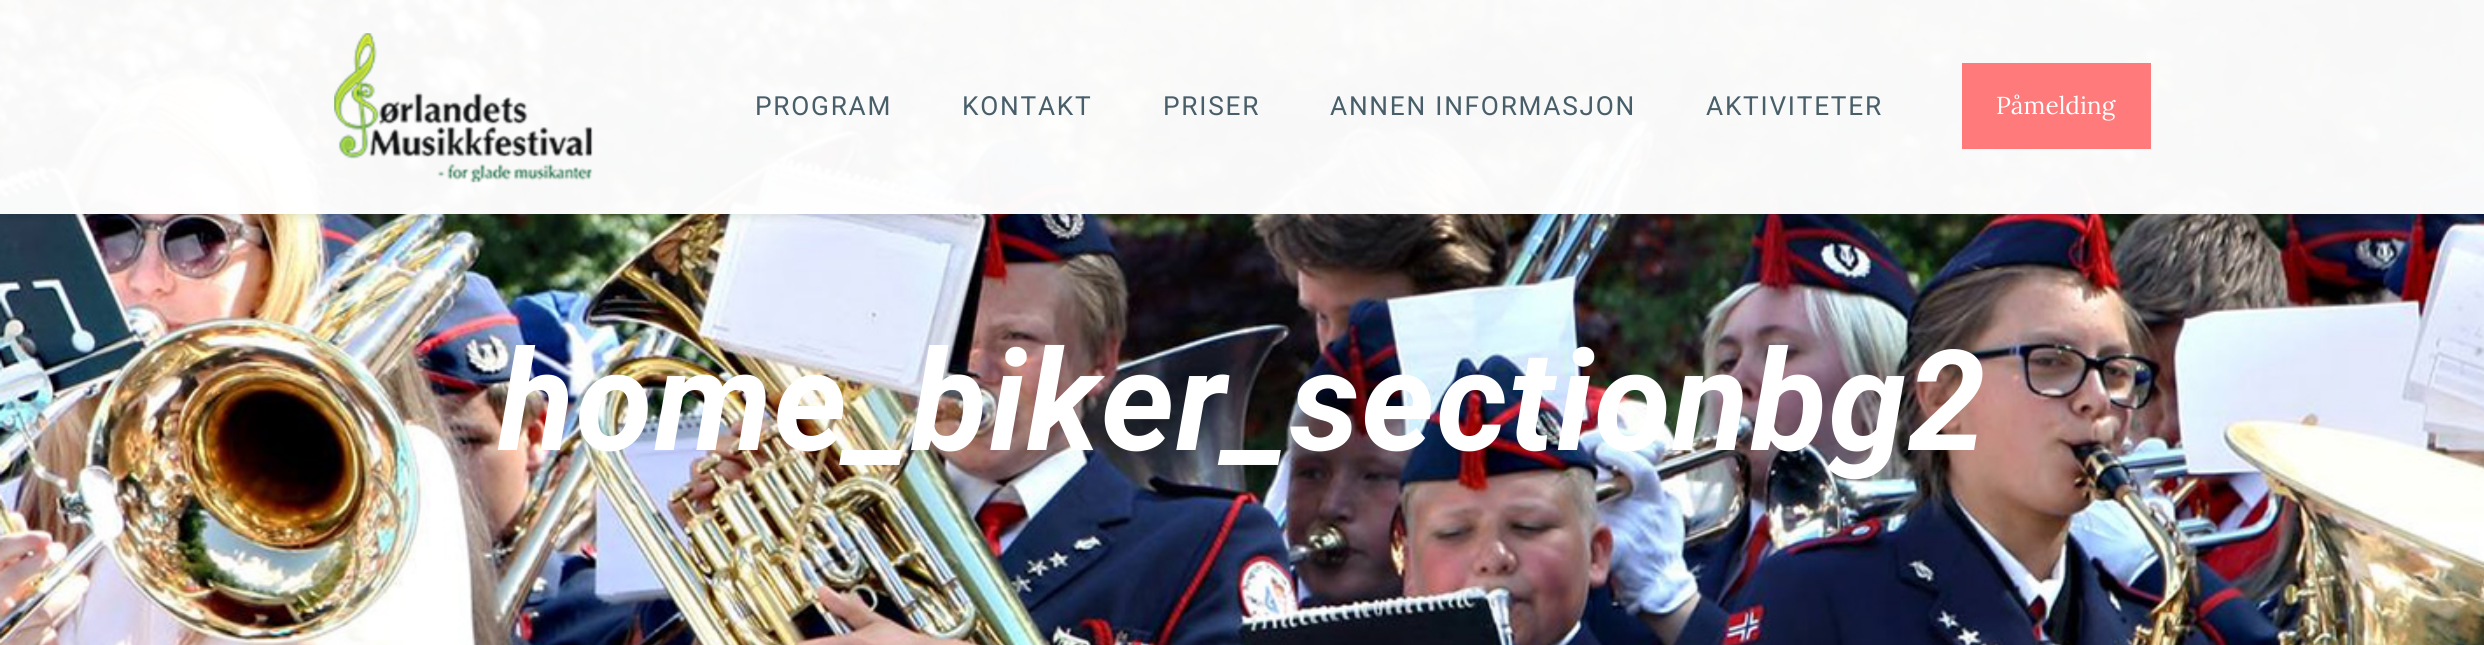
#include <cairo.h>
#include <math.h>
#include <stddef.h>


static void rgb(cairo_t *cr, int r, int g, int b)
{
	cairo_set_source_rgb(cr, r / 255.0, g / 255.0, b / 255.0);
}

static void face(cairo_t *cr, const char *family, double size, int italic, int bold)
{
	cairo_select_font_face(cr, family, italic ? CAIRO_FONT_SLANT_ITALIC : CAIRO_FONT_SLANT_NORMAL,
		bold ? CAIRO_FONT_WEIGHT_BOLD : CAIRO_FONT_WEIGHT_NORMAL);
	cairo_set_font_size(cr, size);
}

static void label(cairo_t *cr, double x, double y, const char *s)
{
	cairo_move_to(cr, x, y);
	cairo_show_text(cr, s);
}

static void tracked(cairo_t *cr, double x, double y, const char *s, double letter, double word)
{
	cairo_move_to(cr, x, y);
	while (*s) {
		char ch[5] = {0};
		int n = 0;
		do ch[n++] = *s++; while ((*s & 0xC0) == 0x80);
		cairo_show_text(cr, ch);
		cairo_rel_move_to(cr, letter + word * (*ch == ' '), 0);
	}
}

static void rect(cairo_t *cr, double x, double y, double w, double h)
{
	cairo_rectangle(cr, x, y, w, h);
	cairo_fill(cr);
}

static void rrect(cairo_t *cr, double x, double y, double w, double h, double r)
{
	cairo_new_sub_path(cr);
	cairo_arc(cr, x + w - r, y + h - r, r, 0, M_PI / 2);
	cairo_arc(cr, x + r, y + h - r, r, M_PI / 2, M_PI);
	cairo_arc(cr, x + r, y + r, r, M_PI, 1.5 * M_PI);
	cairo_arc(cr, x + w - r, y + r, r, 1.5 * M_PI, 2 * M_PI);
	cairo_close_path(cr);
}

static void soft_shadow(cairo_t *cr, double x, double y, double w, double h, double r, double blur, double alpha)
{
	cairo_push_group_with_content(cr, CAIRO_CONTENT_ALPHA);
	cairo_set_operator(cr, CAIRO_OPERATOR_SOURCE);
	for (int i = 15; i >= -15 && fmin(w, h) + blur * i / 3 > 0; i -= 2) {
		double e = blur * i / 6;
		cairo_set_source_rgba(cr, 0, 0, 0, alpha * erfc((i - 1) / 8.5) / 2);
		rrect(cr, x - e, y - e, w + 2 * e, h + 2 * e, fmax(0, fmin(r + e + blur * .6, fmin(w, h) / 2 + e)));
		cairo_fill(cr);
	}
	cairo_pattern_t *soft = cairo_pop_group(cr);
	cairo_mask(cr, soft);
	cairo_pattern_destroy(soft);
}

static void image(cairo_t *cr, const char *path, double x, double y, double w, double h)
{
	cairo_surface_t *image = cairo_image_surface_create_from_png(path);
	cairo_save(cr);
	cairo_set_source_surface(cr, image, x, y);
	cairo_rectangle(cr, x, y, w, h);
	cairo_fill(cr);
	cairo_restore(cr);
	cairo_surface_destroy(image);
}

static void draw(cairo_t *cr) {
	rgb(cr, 255, 255, 255);
	cairo_paint(cr);
	image(cr, "image0.png", 0, 0, 2484, 645);
	cairo_save(cr);
	cairo_set_fill_rule(cr, CAIRO_FILL_RULE_EVEN_ODD);
	cairo_new_path(cr);
	cairo_move_to(cr, 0, 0);
	cairo_line_to(cr, 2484, 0);
	cairo_line_to(cr, 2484, 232);
	cairo_line_to(cr, 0, 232);
	cairo_close_path(cr);
	cairo_move_to(cr, 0, 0);
	cairo_line_to(cr, 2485, 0);
	cairo_line_to(cr, 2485, 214);
	cairo_line_to(cr, 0, 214);
	cairo_close_path(cr);
	cairo_clip(cr);
	rgb(cr, 0, 0, 0);
	soft_shadow(cr, 0, 4, 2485, 213, 0, 4.5, 0.1);
	cairo_restore(cr);
	cairo_set_source_rgba(cr, 1, 1, 1, 0.97);
	rect(cr, 0, 0, 2484, 214);
	image(cr, "image1.png", 334, 33, 259, 150);
	face(cr, "Roboto", 26.25, 0, 0);
	rgb(cr, 72, 94, 105);
	tracked(cr, 755, 115, "PROGRAM", 1.75, 0);
	tracked(cr, 962, 115, "KONTAKT", 1.75, 0);
	tracked(cr, 1163, 115, "PRISER", 1.75, 0);
	tracked(cr, 1330, 115, "ANNEN INFORMASJON", 1.75, 0);
	tracked(cr, 1706, 115, "AKTIVITETER", 1.75, 0);
	cairo_set_source_rgba(cr, 1, 0.467, 0.467, 0.97);
	rect(cr, 1962, 63, 189, 86);
	face(cr, "Lora", 24.5, 0, 0);
	rgb(cr, 255, 255, 255);
	label(cr, 1996, 114, "Påmelding");
	face(cr, "Roboto", 140, 1, 1);
	tracked(cr, 498, 450, "home_biker_sectionbg2", 1.75, 0);
}

int main(void) {
	cairo_surface_t *surface = cairo_image_surface_create(CAIRO_FORMAT_RGB24, 2484, 645);
	cairo_t *cr = cairo_create(surface);
	cairo_font_options_t *options = cairo_font_options_create();
	cairo_font_options_set_hint_metrics(options, CAIRO_HINT_METRICS_OFF);
	cairo_font_options_set_hint_style(options, CAIRO_HINT_STYLE_NONE);
	cairo_set_font_options(cr, options);
	cairo_set_miter_limit(cr, 4);
	draw(cr);
	cairo_surface_write_to_png(surface, "render.png");
	cairo_font_options_destroy(options);
	cairo_destroy(cr);
	cairo_surface_destroy(surface);
	return 0;
}
